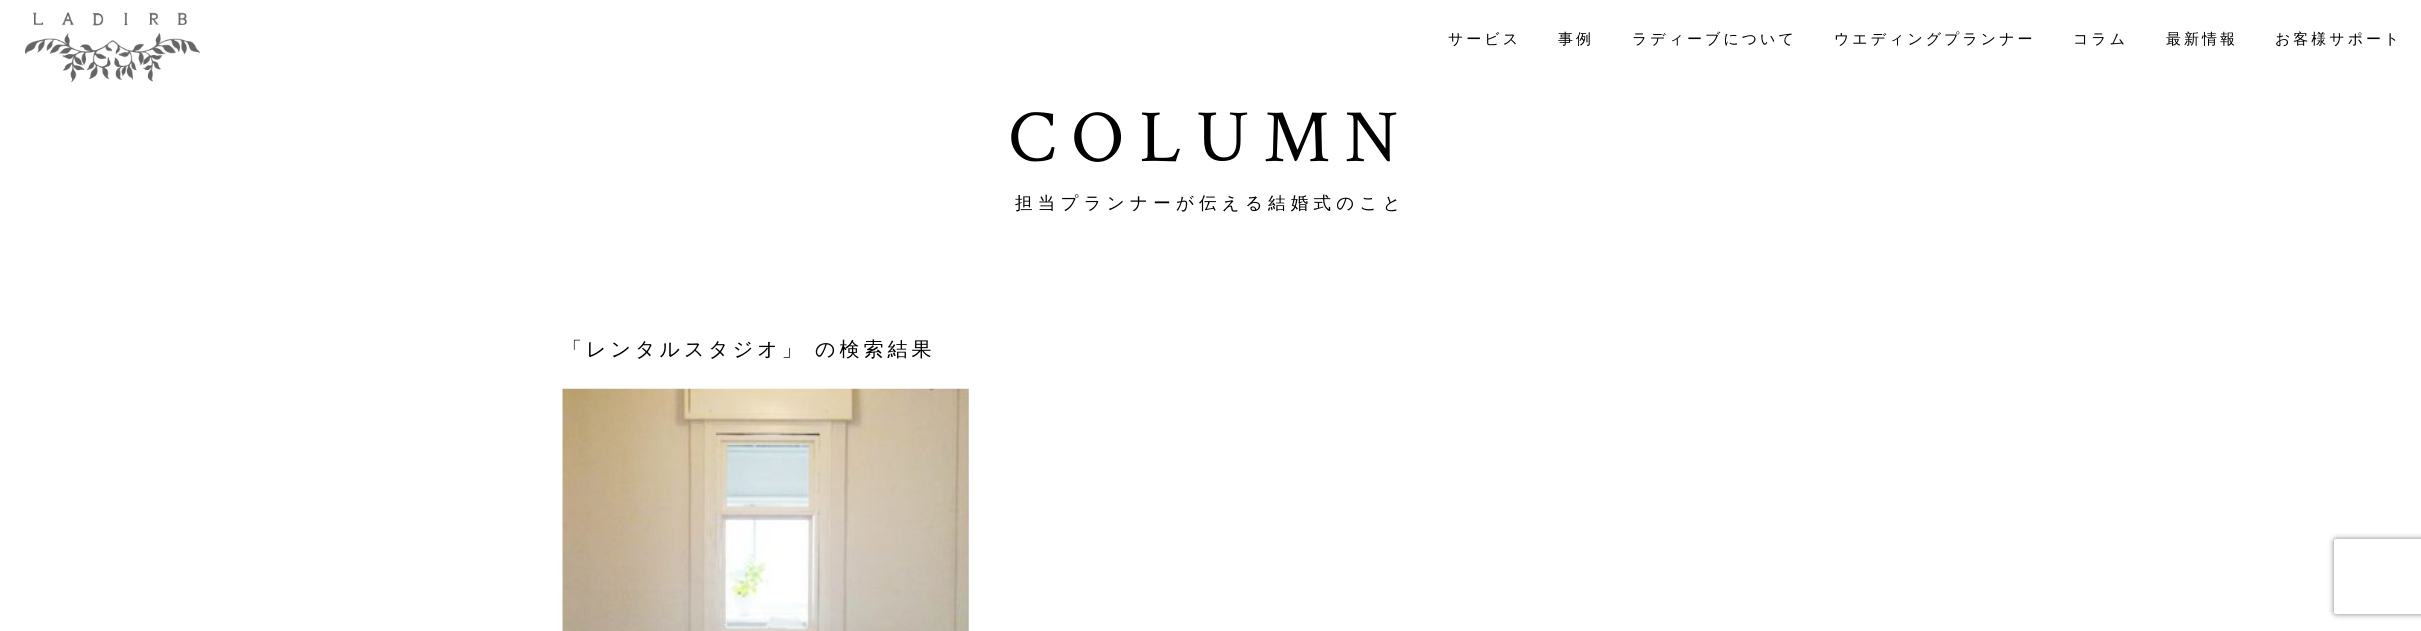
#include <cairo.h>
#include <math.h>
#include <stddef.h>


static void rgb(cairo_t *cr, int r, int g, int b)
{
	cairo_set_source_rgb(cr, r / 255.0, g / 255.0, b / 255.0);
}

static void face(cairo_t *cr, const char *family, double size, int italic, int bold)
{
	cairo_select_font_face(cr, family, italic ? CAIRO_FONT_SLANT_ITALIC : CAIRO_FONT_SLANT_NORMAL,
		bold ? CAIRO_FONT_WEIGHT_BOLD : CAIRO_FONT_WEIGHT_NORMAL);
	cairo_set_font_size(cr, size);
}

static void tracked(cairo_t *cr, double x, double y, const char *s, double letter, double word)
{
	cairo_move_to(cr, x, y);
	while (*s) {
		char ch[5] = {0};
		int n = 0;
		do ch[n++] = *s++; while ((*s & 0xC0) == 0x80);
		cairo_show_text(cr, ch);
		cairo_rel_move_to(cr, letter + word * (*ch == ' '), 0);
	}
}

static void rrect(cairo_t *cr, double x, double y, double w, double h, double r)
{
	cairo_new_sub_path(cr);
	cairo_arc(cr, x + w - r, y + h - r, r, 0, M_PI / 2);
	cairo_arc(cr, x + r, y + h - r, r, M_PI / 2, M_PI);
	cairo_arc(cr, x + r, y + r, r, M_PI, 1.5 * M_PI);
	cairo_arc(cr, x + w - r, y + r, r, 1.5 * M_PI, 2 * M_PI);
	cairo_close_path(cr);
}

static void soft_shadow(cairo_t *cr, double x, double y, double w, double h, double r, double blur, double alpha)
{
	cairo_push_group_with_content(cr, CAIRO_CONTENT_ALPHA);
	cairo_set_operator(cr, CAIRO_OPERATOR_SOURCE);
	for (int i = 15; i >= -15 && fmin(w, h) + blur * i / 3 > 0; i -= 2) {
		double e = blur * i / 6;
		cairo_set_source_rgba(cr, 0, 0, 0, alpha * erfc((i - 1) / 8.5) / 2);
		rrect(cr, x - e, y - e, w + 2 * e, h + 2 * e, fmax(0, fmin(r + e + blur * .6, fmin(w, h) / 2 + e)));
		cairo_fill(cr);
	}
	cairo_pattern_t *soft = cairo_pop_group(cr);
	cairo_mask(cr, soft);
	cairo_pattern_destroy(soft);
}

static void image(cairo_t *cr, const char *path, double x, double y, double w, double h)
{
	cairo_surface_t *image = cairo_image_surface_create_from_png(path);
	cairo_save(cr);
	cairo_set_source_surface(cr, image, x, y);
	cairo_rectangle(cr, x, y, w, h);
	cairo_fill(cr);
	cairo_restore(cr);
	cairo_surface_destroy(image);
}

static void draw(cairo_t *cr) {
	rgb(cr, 255, 255, 255);
	cairo_paint(cr);
	image(cr, "image0.png", 25, 12, 175, 71);
	face(cr, "WenQuanYi Zen Hei Medium", 15, 0, 0);
	rgb(cr, 0, 0, 0);
	tracked(cr, 1448, 44, "サービス", 3, 0);
	tracked(cr, 1558, 44, "事例", 3, 0);
	tracked(cr, 1632, 44, "ラディーブについて", 3, 0);
	tracked(cr, 1834, 44, "ウエディングプランナー", 3, 0);
	tracked(cr, 2073, 44, "コラム", 3, 0);
	tracked(cr, 2166, 44, "最新情報", 3, 0);
	tracked(cr, 2275, 44, "お客様サポート", 3, 0);
	face(cr, "Crimson Text", 75, 0, 0);
	tracked(cr, 1008, 161, "COLUMN", 15, 0);
	face(cr, "WenQuanYi Zen Hei Medium", 17.5, 0, 0);
	tracked(cr, 1015, 209, "担当プランナーが伝える結婚式のこと", 5.25, 0);
	face(cr, "WenQuanYi Zen Hei Medium", 20, 0, 0);
	tracked(cr, 562, 356, "「レンタルスタジオ」", 4, 0);
	tracked(cr, 815, 356, "の検索結果", 4, 0);
	image(cr, "image1.png", 562, 388, 407, 243);
	cairo_save(cr);
	cairo_set_fill_rule(cr, CAIRO_FILL_RULE_EVEN_ODD);
	cairo_new_path(cr);
	cairo_move_to(cr, 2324, 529);
	cairo_line_to(cr, 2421, 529);
	cairo_line_to(cr, 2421, 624);
	cairo_line_to(cr, 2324, 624);
	cairo_close_path(cr);
	cairo_move_to(cr, 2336.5, 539);
	cairo_line_to(cr, 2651.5, 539);
	cairo_curve_to(cr, 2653, 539, 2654, 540, 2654, 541.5);
	cairo_line_to(cr, 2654, 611.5);
	cairo_curve_to(cr, 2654, 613, 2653, 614, 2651.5, 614);
	cairo_line_to(cr, 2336.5, 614);
	cairo_curve_to(cr, 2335, 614, 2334, 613, 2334, 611.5);
	cairo_line_to(cr, 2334, 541.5);
	cairo_curve_to(cr, 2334, 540, 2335, 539, 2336.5, 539);
	cairo_close_path(cr);
	cairo_clip(cr);
	rgb(cr, 128, 128, 128);
	soft_shadow(cr, 2334, 539, 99, 75, 2.5, 3, 1);
	cairo_restore(cr);
}

int main(void) {
	cairo_surface_t *surface = cairo_image_surface_create(CAIRO_FORMAT_RGB24, 2421, 631);
	cairo_t *cr = cairo_create(surface);
	cairo_font_options_t *options = cairo_font_options_create();
	cairo_font_options_set_hint_metrics(options, CAIRO_HINT_METRICS_OFF);
	cairo_font_options_set_hint_style(options, CAIRO_HINT_STYLE_NONE);
	cairo_set_font_options(cr, options);
	cairo_set_miter_limit(cr, 4);
	draw(cr);
	cairo_surface_write_to_png(surface, "render.png");
	cairo_font_options_destroy(options);
	cairo_destroy(cr);
	cairo_surface_destroy(surface);
	return 0;
}
